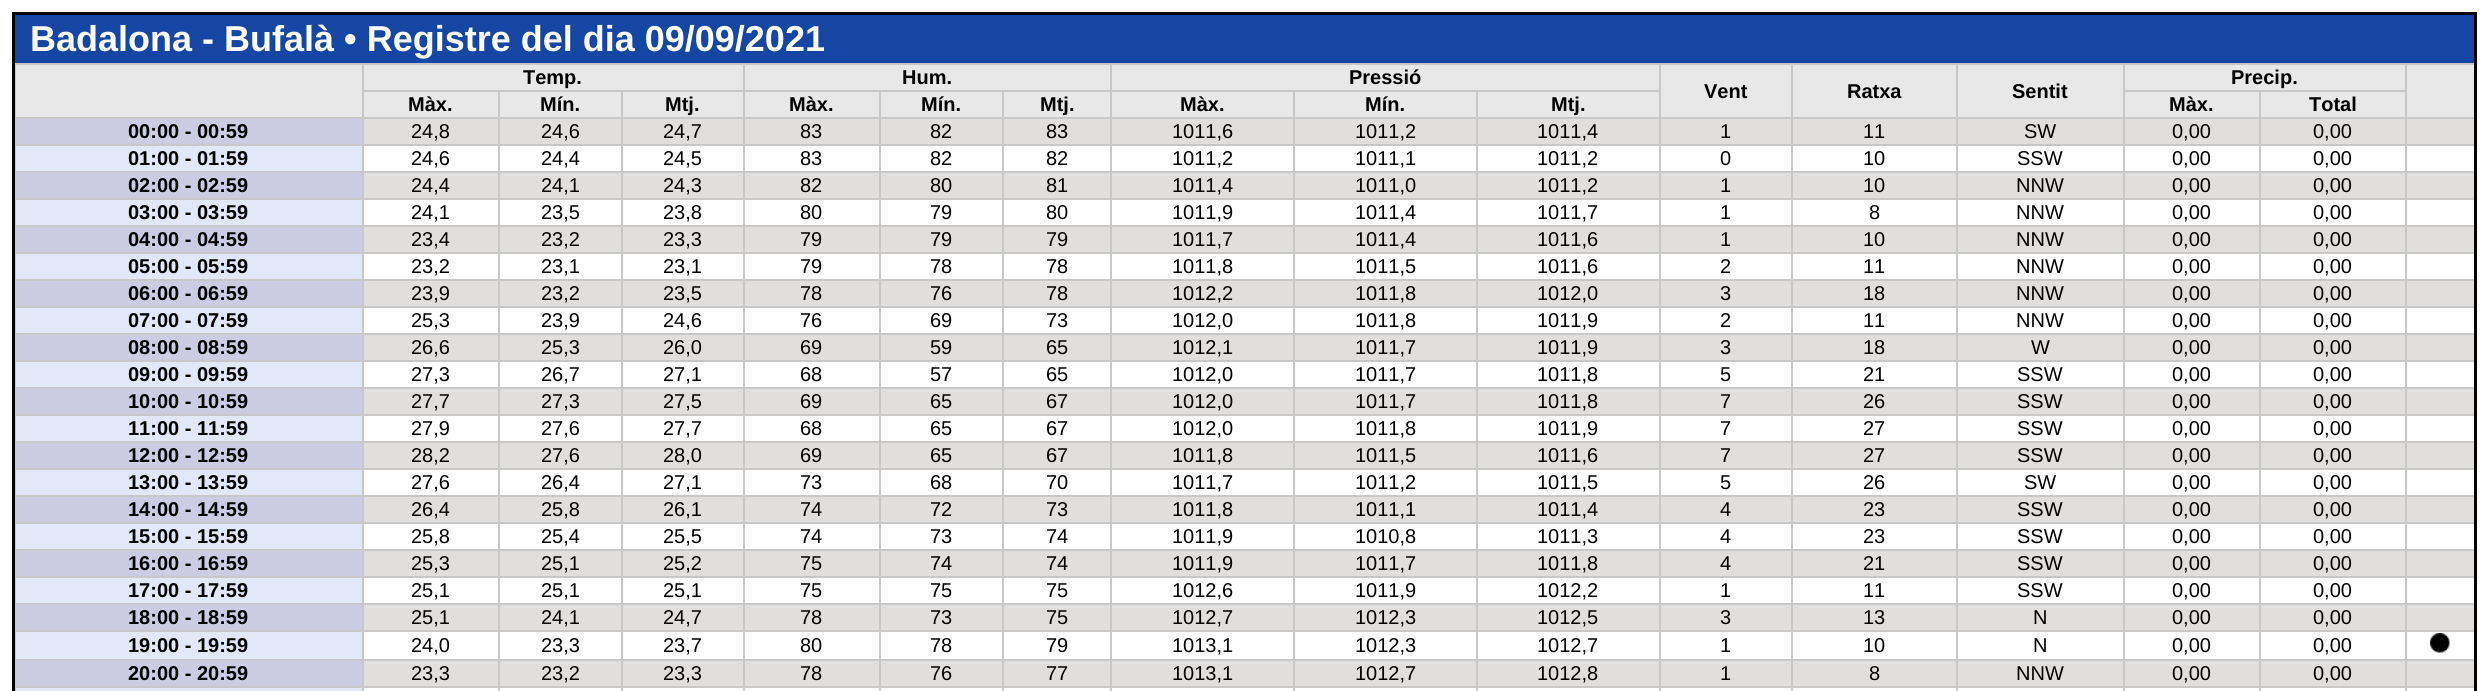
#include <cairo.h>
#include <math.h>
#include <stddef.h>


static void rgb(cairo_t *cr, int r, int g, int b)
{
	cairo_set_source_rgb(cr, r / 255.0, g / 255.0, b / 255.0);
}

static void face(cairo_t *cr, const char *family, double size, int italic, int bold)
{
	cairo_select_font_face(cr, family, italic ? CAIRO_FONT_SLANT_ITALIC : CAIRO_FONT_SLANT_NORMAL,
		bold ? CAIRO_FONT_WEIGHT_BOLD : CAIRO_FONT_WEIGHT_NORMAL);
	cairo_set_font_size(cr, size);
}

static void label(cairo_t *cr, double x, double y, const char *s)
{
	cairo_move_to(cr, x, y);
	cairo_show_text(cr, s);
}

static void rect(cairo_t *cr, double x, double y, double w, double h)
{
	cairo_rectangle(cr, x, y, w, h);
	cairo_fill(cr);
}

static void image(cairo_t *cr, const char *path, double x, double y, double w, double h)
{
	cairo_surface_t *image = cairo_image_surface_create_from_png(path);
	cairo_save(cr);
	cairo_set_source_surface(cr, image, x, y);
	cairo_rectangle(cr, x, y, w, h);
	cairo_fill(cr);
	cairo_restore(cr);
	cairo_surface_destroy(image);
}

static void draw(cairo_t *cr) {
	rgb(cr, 255, 255, 255);
	cairo_paint(cr);
	rgb(cr, 21, 70, 163);
	rect(cr, 15, 15, 2459, 48);
	rgb(cr, 0, 0, 0);
	rect(cr, 12, 12, 2465, 3);
	rect(cr, 2474, 12, 3, 51);
	rect(cr, 12, 12, 3, 51);
	face(cr, "Liberation Sans", 36, 0, 1);
	rgb(cr, 255, 255, 255);
	label(cr, 30, 51, "Badalona - Bufalà • Registre del dia 09/09/2021");
	rgb(cr, 200, 200, 200);
	rect(cr, 2405, 63, 72, 2);
	rect(cr, 2405, 117, 72, 2);
	rect(cr, 2405, 144, 72, 2);
	rect(cr, 2405, 171, 72, 2);
	rect(cr, 2405, 198, 72, 2);
	rect(cr, 2405, 225, 72, 2);
	rect(cr, 2405, 252, 72, 2);
	rect(cr, 2405, 279, 72, 2);
	rect(cr, 2405, 306, 72, 2);
	rect(cr, 2405, 333, 72, 2);
	rect(cr, 2405, 360, 72, 2);
	rect(cr, 2405, 387, 72, 2);
	rect(cr, 2405, 414, 72, 2);
	rect(cr, 2405, 441, 72, 2);
	rect(cr, 2405, 468, 72, 2);
	rect(cr, 2405, 495, 72, 2);
	rect(cr, 2405, 522, 72, 2);
	rect(cr, 2405, 549, 72, 2);
	rect(cr, 2405, 576, 72, 2);
	rect(cr, 2405, 603, 72, 2);
	rect(cr, 2405, 630, 72, 2);
	rect(cr, 2405, 659, 72, 2);
	rect(cr, 2405, 686, 72, 2);
	rgb(cr, 0, 0, 0);
	rect(cr, 2474, 63, 3, 628);
	rgb(cr, 200, 200, 200);
	rect(cr, 2259, 90, 147, 2);
	rgb(cr, 224, 223, 222);
	rect(cr, 364, 119, 2110, 25);
	rect(cr, 364, 173, 2110, 25);
	rect(cr, 364, 227, 2110, 25);
	rect(cr, 364, 281, 2110, 25);
	rect(cr, 364, 335, 2110, 25);
	rect(cr, 364, 389, 2110, 25);
	rect(cr, 364, 443, 2110, 25);
	rect(cr, 364, 497, 2110, 25);
	rect(cr, 364, 551, 2110, 25);
	rect(cr, 364, 605, 2110, 25);
	rect(cr, 364, 661, 2110, 25);
	rgb(cr, 200, 200, 200);
	rect(cr, 2405, 686, 2, 5);
	rect(cr, 2259, 686, 147, 2);
	rect(cr, 2405, 659, 2, 28);
	rect(cr, 2259, 659, 147, 2);
	rect(cr, 2405, 630, 2, 30);
	rect(cr, 2259, 630, 147, 2);
	rect(cr, 2405, 603, 2, 29);
	rect(cr, 2259, 603, 147, 2);
	rect(cr, 2405, 576, 2, 29);
	rect(cr, 2259, 576, 147, 2);
	rect(cr, 2405, 549, 2, 29);
	rect(cr, 2259, 549, 147, 2);
	rect(cr, 2405, 522, 2, 29);
	rect(cr, 2259, 522, 147, 2);
	rect(cr, 2405, 495, 2, 29);
	rect(cr, 2259, 495, 147, 2);
	rect(cr, 2405, 468, 2, 29);
	rect(cr, 2259, 468, 147, 2);
	rect(cr, 2405, 441, 2, 29);
	rect(cr, 2259, 441, 147, 2);
	rect(cr, 2405, 414, 2, 29);
	rect(cr, 2259, 414, 147, 2);
	rect(cr, 2405, 387, 2, 29);
	rect(cr, 2259, 387, 147, 2);
	rect(cr, 2405, 360, 2, 29);
	rect(cr, 2259, 360, 147, 2);
	rect(cr, 2405, 333, 2, 29);
	rect(cr, 2259, 333, 147, 2);
	rect(cr, 2405, 306, 2, 29);
	rect(cr, 2259, 306, 147, 2);
	rect(cr, 2405, 279, 2, 29);
	rect(cr, 2259, 279, 147, 2);
	rect(cr, 2405, 252, 2, 29);
	rect(cr, 2259, 252, 147, 2);
	rect(cr, 2405, 225, 2, 29);
	rect(cr, 2259, 225, 147, 2);
	rect(cr, 2405, 198, 2, 29);
	rect(cr, 2259, 198, 147, 2);
	rect(cr, 2405, 171, 2, 29);
	rect(cr, 2259, 171, 147, 2);
	rect(cr, 2405, 144, 2, 29);
	rect(cr, 2259, 144, 147, 2);
	rect(cr, 2405, 117, 2, 29);
	rect(cr, 2259, 117, 147, 2);
	rect(cr, 2405, 63, 2, 56);
	rect(cr, 2123, 63, 283, 2);
	rect(cr, 2259, 686, 2, 5);
	rect(cr, 2123, 686, 138, 2);
	rect(cr, 2259, 659, 2, 28);
	rect(cr, 2123, 659, 138, 2);
	rect(cr, 2259, 630, 2, 30);
	rect(cr, 2123, 630, 138, 2);
	rect(cr, 2259, 603, 2, 29);
	rect(cr, 2123, 603, 138, 2);
	rect(cr, 2259, 576, 2, 29);
	rect(cr, 2123, 576, 138, 2);
	rect(cr, 2259, 549, 2, 29);
	rect(cr, 2123, 549, 138, 2);
	rect(cr, 2259, 522, 2, 29);
	rect(cr, 2123, 522, 138, 2);
	rect(cr, 2259, 495, 2, 29);
	rect(cr, 2123, 495, 138, 2);
	rect(cr, 2259, 468, 2, 29);
	rect(cr, 2123, 468, 138, 2);
	rect(cr, 2259, 441, 2, 29);
	rect(cr, 2123, 441, 138, 2);
	rect(cr, 2259, 414, 2, 29);
	rect(cr, 2123, 414, 138, 2);
	rect(cr, 2259, 387, 2, 29);
	rect(cr, 2123, 387, 138, 2);
	rect(cr, 2259, 360, 2, 29);
	rect(cr, 2123, 360, 138, 2);
	rect(cr, 2259, 333, 2, 29);
	rect(cr, 2123, 333, 138, 2);
	rect(cr, 2259, 306, 2, 29);
	rect(cr, 2123, 306, 138, 2);
	rect(cr, 2259, 279, 2, 29);
	rect(cr, 2123, 279, 138, 2);
	rect(cr, 2259, 252, 2, 29);
	rect(cr, 2123, 252, 138, 2);
	rect(cr, 2259, 225, 2, 29);
	rect(cr, 2123, 225, 138, 2);
	rect(cr, 2259, 198, 2, 29);
	rect(cr, 2123, 198, 138, 2);
	rect(cr, 2259, 171, 2, 29);
	rect(cr, 2123, 171, 138, 2);
	rect(cr, 2259, 144, 2, 29);
	rect(cr, 2123, 144, 138, 2);
	rect(cr, 2259, 117, 2, 29);
	rect(cr, 2123, 117, 138, 2);
	rect(cr, 2259, 90, 2, 29);
	rect(cr, 2123, 90, 138, 2);
	rect(cr, 2123, 686, 2, 5);
	rect(cr, 1956, 686, 168, 2);
	rect(cr, 2123, 659, 2, 28);
	rect(cr, 1956, 659, 168, 2);
	rect(cr, 2123, 630, 2, 30);
	rect(cr, 1956, 630, 168, 2);
	rect(cr, 2123, 603, 2, 29);
	rect(cr, 1956, 603, 168, 2);
	rect(cr, 2123, 576, 2, 29);
	rect(cr, 1956, 576, 168, 2);
	rect(cr, 2123, 549, 2, 29);
	rect(cr, 1956, 549, 168, 2);
	rect(cr, 2123, 522, 2, 29);
	rect(cr, 1956, 522, 168, 2);
	rect(cr, 2123, 495, 2, 29);
	rect(cr, 1956, 495, 168, 2);
	rect(cr, 2123, 468, 2, 29);
	rect(cr, 1956, 468, 168, 2);
	rect(cr, 2123, 441, 2, 29);
	rect(cr, 1956, 441, 168, 2);
	rect(cr, 2123, 414, 2, 29);
	rect(cr, 1956, 414, 168, 2);
	rect(cr, 2123, 387, 2, 29);
	rect(cr, 1956, 387, 168, 2);
	rect(cr, 2123, 360, 2, 29);
	rect(cr, 1956, 360, 168, 2);
	rect(cr, 2123, 333, 2, 29);
	rect(cr, 1956, 333, 168, 2);
	rect(cr, 2123, 306, 2, 29);
	rect(cr, 1956, 306, 168, 2);
	rect(cr, 2123, 279, 2, 29);
	rect(cr, 1956, 279, 168, 2);
	rect(cr, 2123, 252, 2, 29);
	rect(cr, 1956, 252, 168, 2);
	rect(cr, 2123, 225, 2, 29);
	rect(cr, 1956, 225, 168, 2);
	rect(cr, 2123, 198, 2, 29);
	rect(cr, 1956, 198, 168, 2);
	rect(cr, 2123, 171, 2, 29);
	rect(cr, 1956, 171, 168, 2);
	rect(cr, 2123, 144, 2, 29);
	rect(cr, 1956, 144, 168, 2);
	rect(cr, 2123, 117, 2, 29);
	rect(cr, 1956, 117, 168, 2);
	rect(cr, 2123, 90, 2, 29);
	rect(cr, 2123, 63, 2, 29);
	rect(cr, 1956, 63, 168, 2);
	rect(cr, 1956, 686, 2, 5);
	rect(cr, 1791, 686, 167, 2);
	rect(cr, 1956, 659, 2, 28);
	rect(cr, 1791, 659, 167, 2);
	rect(cr, 1956, 630, 2, 30);
	rect(cr, 1791, 630, 167, 2);
	rect(cr, 1956, 603, 2, 29);
	rect(cr, 1791, 603, 167, 2);
	rect(cr, 1956, 576, 2, 29);
	rect(cr, 1791, 576, 167, 2);
	rect(cr, 1956, 549, 2, 29);
	rect(cr, 1791, 549, 167, 2);
	rect(cr, 1956, 522, 2, 29);
	rect(cr, 1791, 522, 167, 2);
	rect(cr, 1956, 495, 2, 29);
	rect(cr, 1791, 495, 167, 2);
	rect(cr, 1956, 468, 2, 29);
	rect(cr, 1791, 468, 167, 2);
	rect(cr, 1956, 441, 2, 29);
	rect(cr, 1791, 441, 167, 2);
	rect(cr, 1956, 414, 2, 29);
	rect(cr, 1791, 414, 167, 2);
	rect(cr, 1956, 387, 2, 29);
	rect(cr, 1791, 387, 167, 2);
	rect(cr, 1956, 360, 2, 29);
	rect(cr, 1791, 360, 167, 2);
	rect(cr, 1956, 333, 2, 29);
	rect(cr, 1791, 333, 167, 2);
	rect(cr, 1956, 306, 2, 29);
	rect(cr, 1791, 306, 167, 2);
	rect(cr, 1956, 279, 2, 29);
	rect(cr, 1791, 279, 167, 2);
	rect(cr, 1956, 252, 2, 29);
	rect(cr, 1791, 252, 167, 2);
	rect(cr, 1956, 225, 2, 29);
	rect(cr, 1791, 225, 167, 2);
	rect(cr, 1956, 198, 2, 29);
	rect(cr, 1791, 198, 167, 2);
	rect(cr, 1956, 171, 2, 29);
	rect(cr, 1791, 171, 167, 2);
	rect(cr, 1956, 144, 2, 29);
	rect(cr, 1791, 144, 167, 2);
	rect(cr, 1956, 117, 2, 29);
	rect(cr, 1791, 117, 167, 2);
	rect(cr, 1956, 63, 2, 56);
	rect(cr, 1791, 63, 167, 2);
	rect(cr, 1791, 686, 2, 5);
	rect(cr, 1659, 686, 134, 2);
	rect(cr, 1791, 659, 2, 28);
	rect(cr, 1659, 659, 134, 2);
	rect(cr, 1791, 630, 2, 30);
	rect(cr, 1659, 630, 134, 2);
	rect(cr, 1791, 603, 2, 29);
	rect(cr, 1659, 603, 134, 2);
	rect(cr, 1791, 576, 2, 29);
	rect(cr, 1659, 576, 134, 2);
	rect(cr, 1791, 549, 2, 29);
	rect(cr, 1659, 549, 134, 2);
	rect(cr, 1791, 522, 2, 29);
	rect(cr, 1659, 522, 134, 2);
	rect(cr, 1791, 495, 2, 29);
	rect(cr, 1659, 495, 134, 2);
	rect(cr, 1791, 468, 2, 29);
	rect(cr, 1659, 468, 134, 2);
	rect(cr, 1791, 441, 2, 29);
	rect(cr, 1659, 441, 134, 2);
	rect(cr, 1791, 414, 2, 29);
	rect(cr, 1659, 414, 134, 2);
	rect(cr, 1791, 387, 2, 29);
	rect(cr, 1659, 387, 134, 2);
	rect(cr, 1791, 360, 2, 29);
	rect(cr, 1659, 360, 134, 2);
	rect(cr, 1791, 333, 2, 29);
	rect(cr, 1659, 333, 134, 2);
	rect(cr, 1791, 306, 2, 29);
	rect(cr, 1659, 306, 134, 2);
	rect(cr, 1791, 279, 2, 29);
	rect(cr, 1659, 279, 134, 2);
	rect(cr, 1791, 252, 2, 29);
	rect(cr, 1659, 252, 134, 2);
	rect(cr, 1791, 225, 2, 29);
	rect(cr, 1659, 225, 134, 2);
	rect(cr, 1791, 198, 2, 29);
	rect(cr, 1659, 198, 134, 2);
	rect(cr, 1791, 171, 2, 29);
	rect(cr, 1659, 171, 134, 2);
	rect(cr, 1791, 144, 2, 29);
	rect(cr, 1659, 144, 134, 2);
	rect(cr, 1791, 117, 2, 29);
	rect(cr, 1659, 117, 134, 2);
	rect(cr, 1791, 63, 2, 56);
	rect(cr, 1659, 63, 134, 2);
	rect(cr, 1476, 90, 185, 2);
	rect(cr, 1659, 686, 2, 5);
	rect(cr, 1476, 686, 185, 2);
	rect(cr, 1659, 659, 2, 28);
	rect(cr, 1476, 659, 185, 2);
	rect(cr, 1659, 630, 2, 30);
	rect(cr, 1476, 630, 185, 2);
	rect(cr, 1659, 603, 2, 29);
	rect(cr, 1476, 603, 185, 2);
	rect(cr, 1659, 576, 2, 29);
	rect(cr, 1476, 576, 185, 2);
	rect(cr, 1659, 549, 2, 29);
	rect(cr, 1476, 549, 185, 2);
	rect(cr, 1659, 522, 2, 29);
	rect(cr, 1476, 522, 185, 2);
	rect(cr, 1659, 495, 2, 29);
	rect(cr, 1476, 495, 185, 2);
	rect(cr, 1659, 468, 2, 29);
	rect(cr, 1476, 468, 185, 2);
	rect(cr, 1659, 441, 2, 29);
	rect(cr, 1476, 441, 185, 2);
	rect(cr, 1659, 414, 2, 29);
	rect(cr, 1476, 414, 185, 2);
	rect(cr, 1659, 387, 2, 29);
	rect(cr, 1476, 387, 185, 2);
	rect(cr, 1659, 360, 2, 29);
	rect(cr, 1476, 360, 185, 2);
	rect(cr, 1659, 333, 2, 29);
	rect(cr, 1476, 333, 185, 2);
	rect(cr, 1659, 306, 2, 29);
	rect(cr, 1476, 306, 185, 2);
	rect(cr, 1659, 279, 2, 29);
	rect(cr, 1476, 279, 185, 2);
	rect(cr, 1659, 252, 2, 29);
	rect(cr, 1476, 252, 185, 2);
	rect(cr, 1659, 225, 2, 29);
	rect(cr, 1476, 225, 185, 2);
	rect(cr, 1659, 198, 2, 29);
	rect(cr, 1476, 198, 185, 2);
	rect(cr, 1659, 171, 2, 29);
	rect(cr, 1476, 171, 185, 2);
	rect(cr, 1659, 144, 2, 29);
	rect(cr, 1476, 144, 185, 2);
	rect(cr, 1659, 117, 2, 29);
	rect(cr, 1476, 117, 185, 2);
	rect(cr, 1659, 63, 2, 56);
	rect(cr, 1110, 63, 551, 2);
	rect(cr, 1476, 686, 2, 5);
	rect(cr, 1293, 686, 185, 2);
	rect(cr, 1476, 659, 2, 28);
	rect(cr, 1293, 659, 185, 2);
	rect(cr, 1476, 630, 2, 30);
	rect(cr, 1293, 630, 185, 2);
	rect(cr, 1476, 603, 2, 29);
	rect(cr, 1293, 603, 185, 2);
	rect(cr, 1476, 576, 2, 29);
	rect(cr, 1293, 576, 185, 2);
	rect(cr, 1476, 549, 2, 29);
	rect(cr, 1293, 549, 185, 2);
	rect(cr, 1476, 522, 2, 29);
	rect(cr, 1293, 522, 185, 2);
	rect(cr, 1476, 495, 2, 29);
	rect(cr, 1293, 495, 185, 2);
	rect(cr, 1476, 468, 2, 29);
	rect(cr, 1293, 468, 185, 2);
	rect(cr, 1476, 441, 2, 29);
	rect(cr, 1293, 441, 185, 2);
	rect(cr, 1476, 414, 2, 29);
	rect(cr, 1293, 414, 185, 2);
	rect(cr, 1476, 387, 2, 29);
	rect(cr, 1293, 387, 185, 2);
	rect(cr, 1476, 360, 2, 29);
	rect(cr, 1293, 360, 185, 2);
	rect(cr, 1476, 333, 2, 29);
	rect(cr, 1293, 333, 185, 2);
	rect(cr, 1476, 306, 2, 29);
	rect(cr, 1293, 306, 185, 2);
	rect(cr, 1476, 279, 2, 29);
	rect(cr, 1293, 279, 185, 2);
	rect(cr, 1476, 252, 2, 29);
	rect(cr, 1293, 252, 185, 2);
	rect(cr, 1476, 225, 2, 29);
	rect(cr, 1293, 225, 185, 2);
	rect(cr, 1476, 198, 2, 29);
	rect(cr, 1293, 198, 185, 2);
	rect(cr, 1476, 171, 2, 29);
	rect(cr, 1293, 171, 185, 2);
	rect(cr, 1476, 144, 2, 29);
	rect(cr, 1293, 144, 185, 2);
	rect(cr, 1476, 117, 2, 29);
	rect(cr, 1293, 117, 185, 2);
	rect(cr, 1476, 90, 2, 29);
	rect(cr, 1293, 90, 185, 2);
	rect(cr, 1293, 686, 2, 5);
	rect(cr, 1110, 686, 185, 2);
	rect(cr, 1293, 659, 2, 28);
	rect(cr, 1110, 659, 185, 2);
	rect(cr, 1293, 630, 2, 30);
	rect(cr, 1110, 630, 185, 2);
	rect(cr, 1293, 603, 2, 29);
	rect(cr, 1110, 603, 185, 2);
	rect(cr, 1293, 576, 2, 29);
	rect(cr, 1110, 576, 185, 2);
	rect(cr, 1293, 549, 2, 29);
	rect(cr, 1110, 549, 185, 2);
	rect(cr, 1293, 522, 2, 29);
	rect(cr, 1110, 522, 185, 2);
	rect(cr, 1293, 495, 2, 29);
	rect(cr, 1110, 495, 185, 2);
	rect(cr, 1293, 468, 2, 29);
	rect(cr, 1110, 468, 185, 2);
	rect(cr, 1293, 441, 2, 29);
	rect(cr, 1110, 441, 185, 2);
	rect(cr, 1293, 414, 2, 29);
	rect(cr, 1110, 414, 185, 2);
	rect(cr, 1293, 387, 2, 29);
	rect(cr, 1110, 387, 185, 2);
	rect(cr, 1293, 360, 2, 29);
	rect(cr, 1110, 360, 185, 2);
	rect(cr, 1293, 333, 2, 29);
	rect(cr, 1110, 333, 185, 2);
	rect(cr, 1293, 306, 2, 29);
	rect(cr, 1110, 306, 185, 2);
	rect(cr, 1293, 279, 2, 29);
	rect(cr, 1110, 279, 185, 2);
	rect(cr, 1293, 252, 2, 29);
	rect(cr, 1110, 252, 185, 2);
	rect(cr, 1293, 225, 2, 29);
	rect(cr, 1110, 225, 185, 2);
	rect(cr, 1293, 198, 2, 29);
	rect(cr, 1110, 198, 185, 2);
	rect(cr, 1293, 171, 2, 29);
	rect(cr, 1110, 171, 185, 2);
	rect(cr, 1293, 144, 2, 29);
	rect(cr, 1110, 144, 185, 2);
	rect(cr, 1293, 117, 2, 29);
	rect(cr, 1110, 117, 185, 2);
	rect(cr, 1293, 90, 2, 29);
	rect(cr, 1110, 90, 185, 2);
	rect(cr, 1110, 686, 2, 5);
	rect(cr, 1002, 686, 110, 2);
	rect(cr, 1110, 659, 2, 28);
	rect(cr, 1002, 659, 110, 2);
	rect(cr, 1110, 630, 2, 30);
	rect(cr, 1002, 630, 110, 2);
	rect(cr, 1110, 603, 2, 29);
	rect(cr, 1002, 603, 110, 2);
	rect(cr, 1110, 576, 2, 29);
	rect(cr, 1002, 576, 110, 2);
	rect(cr, 1110, 549, 2, 29);
	rect(cr, 1002, 549, 110, 2);
	rect(cr, 1110, 522, 2, 29);
	rect(cr, 1002, 522, 110, 2);
	rect(cr, 1110, 495, 2, 29);
	rect(cr, 1002, 495, 110, 2);
	rect(cr, 1110, 468, 2, 29);
	rect(cr, 1002, 468, 110, 2);
	rect(cr, 1110, 441, 2, 29);
	rect(cr, 1002, 441, 110, 2);
	rect(cr, 1110, 414, 2, 29);
	rect(cr, 1002, 414, 110, 2);
	rect(cr, 1110, 387, 2, 29);
	rect(cr, 1002, 387, 110, 2);
	rect(cr, 1110, 360, 2, 29);
	rect(cr, 1002, 360, 110, 2);
	rect(cr, 1110, 333, 2, 29);
	rect(cr, 1002, 333, 110, 2);
	rect(cr, 1110, 306, 2, 29);
	rect(cr, 1002, 306, 110, 2);
	rect(cr, 1110, 279, 2, 29);
	rect(cr, 1002, 279, 110, 2);
	rect(cr, 1110, 252, 2, 29);
	rect(cr, 1002, 252, 110, 2);
	rect(cr, 1110, 225, 2, 29);
	rect(cr, 1002, 225, 110, 2);
	rect(cr, 1110, 198, 2, 29);
	rect(cr, 1002, 198, 110, 2);
	rect(cr, 1110, 171, 2, 29);
	rect(cr, 1002, 171, 110, 2);
	rect(cr, 1110, 144, 2, 29);
	rect(cr, 1002, 144, 110, 2);
	rect(cr, 1110, 117, 2, 29);
	rect(cr, 1002, 117, 110, 2);
	rect(cr, 1110, 90, 2, 29);
	rect(cr, 1002, 90, 110, 2);
	rect(cr, 1110, 63, 2, 29);
	rect(cr, 743, 63, 369, 2);
	rect(cr, 1002, 686, 2, 5);
	rect(cr, 879, 686, 125, 2);
	rect(cr, 1002, 659, 2, 28);
	rect(cr, 879, 659, 125, 2);
	rect(cr, 1002, 630, 2, 30);
	rect(cr, 879, 630, 125, 2);
	rect(cr, 1002, 603, 2, 29);
	rect(cr, 879, 603, 125, 2);
	rect(cr, 1002, 576, 2, 29);
	rect(cr, 879, 576, 125, 2);
	rect(cr, 1002, 549, 2, 29);
	rect(cr, 879, 549, 125, 2);
	rect(cr, 1002, 522, 2, 29);
	rect(cr, 879, 522, 125, 2);
	rect(cr, 1002, 495, 2, 29);
	rect(cr, 879, 495, 125, 2);
	rect(cr, 1002, 468, 2, 29);
	rect(cr, 879, 468, 125, 2);
	rect(cr, 1002, 441, 2, 29);
	rect(cr, 879, 441, 125, 2);
	rect(cr, 1002, 414, 2, 29);
	rect(cr, 879, 414, 125, 2);
	rect(cr, 1002, 387, 2, 29);
	rect(cr, 879, 387, 125, 2);
	rect(cr, 1002, 360, 2, 29);
	rect(cr, 879, 360, 125, 2);
	rect(cr, 1002, 333, 2, 29);
	rect(cr, 879, 333, 125, 2);
	rect(cr, 1002, 306, 2, 29);
	rect(cr, 879, 306, 125, 2);
	rect(cr, 1002, 279, 2, 29);
	rect(cr, 879, 279, 125, 2);
	rect(cr, 1002, 252, 2, 29);
	rect(cr, 879, 252, 125, 2);
	rect(cr, 1002, 225, 2, 29);
	rect(cr, 879, 225, 125, 2);
	rect(cr, 1002, 198, 2, 29);
	rect(cr, 879, 198, 125, 2);
	rect(cr, 1002, 171, 2, 29);
	rect(cr, 879, 171, 125, 2);
	rect(cr, 1002, 144, 2, 29);
	rect(cr, 879, 144, 125, 2);
	rect(cr, 1002, 117, 2, 29);
	rect(cr, 879, 117, 125, 2);
	rect(cr, 1002, 90, 2, 29);
	rect(cr, 879, 90, 125, 2);
	rect(cr, 879, 686, 2, 5);
	rect(cr, 743, 686, 138, 2);
	rect(cr, 879, 659, 2, 28);
	rect(cr, 743, 659, 138, 2);
	rect(cr, 879, 630, 2, 30);
	rect(cr, 743, 630, 138, 2);
	rect(cr, 879, 603, 2, 29);
	rect(cr, 743, 603, 138, 2);
	rect(cr, 879, 576, 2, 29);
	rect(cr, 743, 576, 138, 2);
	rect(cr, 879, 549, 2, 29);
	rect(cr, 743, 549, 138, 2);
	rect(cr, 879, 522, 2, 29);
	rect(cr, 743, 522, 138, 2);
	rect(cr, 879, 495, 2, 29);
	rect(cr, 743, 495, 138, 2);
	rect(cr, 879, 468, 2, 29);
	rect(cr, 743, 468, 138, 2);
	rect(cr, 879, 441, 2, 29);
	rect(cr, 743, 441, 138, 2);
	rect(cr, 879, 414, 2, 29);
	rect(cr, 743, 414, 138, 2);
	rect(cr, 879, 387, 2, 29);
	rect(cr, 743, 387, 138, 2);
	rect(cr, 879, 360, 2, 29);
	rect(cr, 743, 360, 138, 2);
	rect(cr, 879, 333, 2, 29);
	rect(cr, 743, 333, 138, 2);
	rect(cr, 879, 306, 2, 29);
	rect(cr, 743, 306, 138, 2);
	rect(cr, 879, 279, 2, 29);
	rect(cr, 743, 279, 138, 2);
	rect(cr, 879, 252, 2, 29);
	rect(cr, 743, 252, 138, 2);
	rect(cr, 879, 225, 2, 29);
	rect(cr, 743, 225, 138, 2);
	rect(cr, 879, 198, 2, 29);
	rect(cr, 743, 198, 138, 2);
	rect(cr, 879, 171, 2, 29);
	rect(cr, 743, 171, 138, 2);
	rect(cr, 879, 144, 2, 29);
	rect(cr, 743, 144, 138, 2);
	rect(cr, 879, 117, 2, 29);
	rect(cr, 743, 117, 138, 2);
	rect(cr, 879, 90, 2, 29);
	rect(cr, 743, 90, 138, 2);
	rect(cr, 743, 686, 2, 5);
	rect(cr, 621, 686, 123, 2);
	rect(cr, 743, 659, 2, 28);
	rect(cr, 621, 659, 123, 2);
	rect(cr, 743, 630, 2, 30);
	rect(cr, 621, 630, 123, 2);
	rect(cr, 743, 603, 2, 29);
	rect(cr, 621, 603, 123, 2);
	rect(cr, 743, 576, 2, 29);
	rect(cr, 621, 576, 123, 2);
	rect(cr, 743, 549, 2, 29);
	rect(cr, 621, 549, 123, 2);
	rect(cr, 743, 522, 2, 29);
	rect(cr, 621, 522, 123, 2);
	rect(cr, 743, 495, 2, 29);
	rect(cr, 621, 495, 123, 2);
	rect(cr, 743, 468, 2, 29);
	rect(cr, 621, 468, 123, 2);
	rect(cr, 743, 441, 2, 29);
	rect(cr, 621, 441, 123, 2);
	rect(cr, 743, 414, 2, 29);
	rect(cr, 621, 414, 123, 2);
	rect(cr, 743, 387, 2, 29);
	rect(cr, 621, 387, 123, 2);
	rect(cr, 743, 360, 2, 29);
	rect(cr, 621, 360, 123, 2);
	rect(cr, 743, 333, 2, 29);
	rect(cr, 621, 333, 123, 2);
	rect(cr, 743, 306, 2, 29);
	rect(cr, 621, 306, 123, 2);
	rect(cr, 743, 279, 2, 29);
	rect(cr, 621, 279, 123, 2);
	rect(cr, 743, 252, 2, 29);
	rect(cr, 621, 252, 123, 2);
	rect(cr, 743, 225, 2, 29);
	rect(cr, 621, 225, 123, 2);
	rect(cr, 743, 198, 2, 29);
	rect(cr, 621, 198, 123, 2);
	rect(cr, 743, 171, 2, 29);
	rect(cr, 621, 171, 123, 2);
	rect(cr, 743, 144, 2, 29);
	rect(cr, 621, 144, 123, 2);
	rect(cr, 743, 117, 2, 29);
	rect(cr, 621, 117, 123, 2);
	rect(cr, 743, 90, 2, 29);
	rect(cr, 621, 90, 123, 2);
	rect(cr, 743, 63, 2, 29);
	rect(cr, 362, 63, 382, 2);
	rect(cr, 621, 686, 2, 5);
	rect(cr, 498, 686, 125, 2);
	rect(cr, 621, 659, 2, 28);
	rect(cr, 498, 659, 125, 2);
	rect(cr, 621, 630, 2, 30);
	rect(cr, 498, 630, 125, 2);
	rect(cr, 621, 603, 2, 29);
	rect(cr, 498, 603, 125, 2);
	rect(cr, 621, 576, 2, 29);
	rect(cr, 498, 576, 125, 2);
	rect(cr, 621, 549, 2, 29);
	rect(cr, 498, 549, 125, 2);
	rect(cr, 621, 522, 2, 29);
	rect(cr, 498, 522, 125, 2);
	rect(cr, 621, 495, 2, 29);
	rect(cr, 498, 495, 125, 2);
	rect(cr, 621, 468, 2, 29);
	rect(cr, 498, 468, 125, 2);
	rect(cr, 621, 441, 2, 29);
	rect(cr, 498, 441, 125, 2);
	rect(cr, 621, 414, 2, 29);
	rect(cr, 498, 414, 125, 2);
	rect(cr, 621, 387, 2, 29);
	rect(cr, 498, 387, 125, 2);
	rect(cr, 621, 360, 2, 29);
	rect(cr, 498, 360, 125, 2);
	rect(cr, 621, 333, 2, 29);
	rect(cr, 498, 333, 125, 2);
	rect(cr, 621, 306, 2, 29);
	rect(cr, 498, 306, 125, 2);
	rect(cr, 621, 279, 2, 29);
	rect(cr, 498, 279, 125, 2);
	rect(cr, 621, 252, 2, 29);
	rect(cr, 498, 252, 125, 2);
	rect(cr, 621, 225, 2, 29);
	rect(cr, 498, 225, 125, 2);
	rect(cr, 621, 198, 2, 29);
	rect(cr, 498, 198, 125, 2);
	rect(cr, 621, 171, 2, 29);
	rect(cr, 498, 171, 125, 2);
	rect(cr, 621, 144, 2, 29);
	rect(cr, 498, 144, 125, 2);
	rect(cr, 621, 117, 2, 29);
	rect(cr, 498, 117, 125, 2);
	rect(cr, 621, 90, 2, 29);
	rect(cr, 498, 90, 125, 2);
	rect(cr, 498, 686, 2, 5);
	rect(cr, 362, 686, 138, 2);
	rect(cr, 498, 659, 2, 28);
	rect(cr, 362, 659, 138, 2);
	rect(cr, 498, 630, 2, 30);
	rect(cr, 362, 630, 138, 2);
	rect(cr, 498, 603, 2, 29);
	rect(cr, 362, 603, 138, 2);
	rect(cr, 498, 576, 2, 29);
	rect(cr, 362, 576, 138, 2);
	rect(cr, 498, 549, 2, 29);
	rect(cr, 362, 549, 138, 2);
	rect(cr, 498, 522, 2, 29);
	rect(cr, 362, 522, 138, 2);
	rect(cr, 498, 495, 2, 29);
	rect(cr, 362, 495, 138, 2);
	rect(cr, 498, 468, 2, 29);
	rect(cr, 362, 468, 138, 2);
	rect(cr, 498, 441, 2, 29);
	rect(cr, 362, 441, 138, 2);
	rect(cr, 498, 414, 2, 29);
	rect(cr, 362, 414, 138, 2);
	rect(cr, 498, 387, 2, 29);
	rect(cr, 362, 387, 138, 2);
	rect(cr, 498, 360, 2, 29);
	rect(cr, 362, 360, 138, 2);
	rect(cr, 498, 333, 2, 29);
	rect(cr, 362, 333, 138, 2);
	rect(cr, 498, 306, 2, 29);
	rect(cr, 362, 306, 138, 2);
	rect(cr, 498, 279, 2, 29);
	rect(cr, 362, 279, 138, 2);
	rect(cr, 498, 252, 2, 29);
	rect(cr, 362, 252, 138, 2);
	rect(cr, 498, 225, 2, 29);
	rect(cr, 362, 225, 138, 2);
	rect(cr, 498, 198, 2, 29);
	rect(cr, 362, 198, 138, 2);
	rect(cr, 498, 171, 2, 29);
	rect(cr, 362, 171, 138, 2);
	rect(cr, 498, 144, 2, 29);
	rect(cr, 362, 144, 138, 2);
	rect(cr, 498, 117, 2, 29);
	rect(cr, 362, 117, 138, 2);
	rect(cr, 498, 90, 2, 29);
	rect(cr, 362, 90, 138, 2);
	rect(cr, 362, 686, 2, 5);
	rect(cr, 14, 686, 349, 2);
	rect(cr, 362, 659, 2, 28);
	rect(cr, 14, 659, 349, 2);
	rect(cr, 362, 630, 2, 30);
	rect(cr, 14, 630, 349, 2);
	rect(cr, 362, 603, 2, 29);
	rect(cr, 14, 603, 349, 2);
	rect(cr, 362, 576, 2, 29);
	rect(cr, 14, 576, 349, 2);
	rect(cr, 362, 549, 2, 29);
	rect(cr, 14, 549, 349, 2);
	rect(cr, 362, 522, 2, 29);
	rect(cr, 14, 522, 349, 2);
	rect(cr, 362, 495, 2, 29);
	rect(cr, 14, 495, 349, 2);
	rect(cr, 362, 468, 2, 29);
	rect(cr, 14, 468, 349, 2);
	rect(cr, 362, 441, 2, 29);
	rect(cr, 14, 441, 349, 2);
	rect(cr, 362, 414, 2, 29);
	rect(cr, 14, 414, 349, 2);
	rect(cr, 362, 387, 2, 29);
	rect(cr, 14, 387, 349, 2);
	rect(cr, 362, 360, 2, 29);
	rect(cr, 14, 360, 349, 2);
	rect(cr, 362, 333, 2, 29);
	rect(cr, 14, 333, 349, 2);
	rect(cr, 362, 306, 2, 29);
	rect(cr, 14, 306, 349, 2);
	rect(cr, 362, 279, 2, 29);
	rect(cr, 14, 279, 349, 2);
	rect(cr, 362, 252, 2, 29);
	rect(cr, 14, 252, 349, 2);
	rect(cr, 362, 225, 2, 29);
	rect(cr, 14, 225, 349, 2);
	rect(cr, 362, 198, 2, 29);
	rect(cr, 14, 198, 349, 2);
	rect(cr, 362, 171, 2, 29);
	rect(cr, 14, 171, 349, 2);
	rect(cr, 362, 144, 2, 29);
	rect(cr, 14, 144, 349, 2);
	rect(cr, 362, 117, 2, 29);
	rect(cr, 14, 117, 349, 2);
	rect(cr, 362, 90, 2, 29);
	rect(cr, 362, 63, 2, 29);
	rect(cr, 14, 63, 349, 2);
	rgb(cr, 226, 232, 248);
	rect(cr, 14, 688, 348, 3);
	rgb(cr, 0, 0, 0);
	rect(cr, 12, 63, 3, 628);
	rgb(cr, 232, 232, 232);
	rect(cr, 16, 65, 346, 52);
	rgb(cr, 200, 200, 200);
	rect(cr, 15, 686, 1, 5);
	rect(cr, 15, 659, 1, 28);
	rect(cr, 15, 630, 1, 30);
	rect(cr, 15, 603, 1, 29);
	rect(cr, 15, 576, 1, 29);
	rect(cr, 15, 549, 1, 29);
	rect(cr, 15, 522, 1, 29);
	rect(cr, 15, 495, 1, 29);
	rect(cr, 15, 468, 1, 29);
	rect(cr, 15, 441, 1, 29);
	rect(cr, 15, 414, 1, 29);
	rect(cr, 15, 387, 1, 29);
	rect(cr, 15, 360, 1, 29);
	rect(cr, 15, 333, 1, 29);
	rect(cr, 15, 306, 1, 29);
	rect(cr, 15, 279, 1, 29);
	rect(cr, 15, 252, 1, 29);
	rect(cr, 15, 225, 1, 29);
	rect(cr, 15, 198, 1, 29);
	rect(cr, 15, 171, 1, 29);
	rect(cr, 15, 144, 1, 29);
	rect(cr, 15, 117, 1, 29);
	rect(cr, 15, 63, 1, 56);
	rgb(cr, 232, 232, 232);
	rect(cr, 364, 65, 379, 25);
	face(cr, "Liberation Sans", 20, 0, 1);
	rgb(cr, 0, 0, 0);
	label(cr, 523, 84, "Temp.");
	rgb(cr, 232, 232, 232);
	rect(cr, 745, 65, 365, 25);
	rgb(cr, 0, 0, 0);
	label(cr, 902, 84, "Hum.");
	rgb(cr, 232, 232, 232);
	rect(cr, 1112, 65, 547, 25);
	rgb(cr, 0, 0, 0);
	label(cr, 1349, 84, "Pressió");
	rgb(cr, 232, 232, 232);
	rect(cr, 2125, 65, 280, 25);
	rgb(cr, 0, 0, 0);
	label(cr, 2231, 84, "Precip.");
	rgb(cr, 232, 232, 232);
	rect(cr, 2407, 65, 67, 52);
	rect(cr, 1661, 65, 130, 52);
	rgb(cr, 0, 0, 0);
	label(cr, 1704, 98, "Vent");
	rgb(cr, 232, 232, 232);
	rect(cr, 1793, 65, 163, 52);
	rgb(cr, 0, 0, 0);
	label(cr, 1847, 98, "Ratxa");
	rgb(cr, 232, 232, 232);
	rect(cr, 1958, 65, 165, 52);
	rgb(cr, 0, 0, 0);
	label(cr, 2012, 98, "Sentit");
	rgb(cr, 232, 232, 232);
	rect(cr, 364, 92, 134, 25);
	rgb(cr, 0, 0, 0);
	label(cr, 408, 111, "Màx.");
	rgb(cr, 232, 232, 232);
	rect(cr, 500, 92, 121, 25);
	rgb(cr, 0, 0, 0);
	label(cr, 540, 111, "Mín.");
	rgb(cr, 232, 232, 232);
	rect(cr, 623, 92, 120, 25);
	rgb(cr, 0, 0, 0);
	label(cr, 665, 111, "Mtj.");
	rgb(cr, 232, 232, 232);
	rect(cr, 745, 92, 134, 25);
	rgb(cr, 0, 0, 0);
	label(cr, 789, 111, "Màx.");
	rgb(cr, 232, 232, 232);
	rect(cr, 881, 92, 121, 25);
	rgb(cr, 0, 0, 0);
	label(cr, 921, 111, "Mín.");
	rgb(cr, 232, 232, 232);
	rect(cr, 1004, 92, 106, 25);
	rgb(cr, 0, 0, 0);
	label(cr, 1040, 111, "Mtj.");
	rgb(cr, 232, 232, 232);
	rect(cr, 1112, 92, 181, 25);
	rgb(cr, 0, 0, 0);
	label(cr, 1180, 111, "Màx.");
	rgb(cr, 232, 232, 232);
	rect(cr, 1295, 92, 181, 25);
	rgb(cr, 0, 0, 0);
	label(cr, 1365, 111, "Mín.");
	rgb(cr, 232, 232, 232);
	rect(cr, 1478, 92, 181, 25);
	rgb(cr, 0, 0, 0);
	label(cr, 1551, 111, "Mtj.");
	rgb(cr, 232, 232, 232);
	rect(cr, 2125, 92, 134, 25);
	rgb(cr, 0, 0, 0);
	label(cr, 2169, 111, "Màx.");
	rgb(cr, 232, 232, 232);
	rect(cr, 2261, 92, 144, 25);
	rgb(cr, 0, 0, 0);
	label(cr, 2309, 111, "Total");
	rgb(cr, 204, 205, 226);
	rect(cr, 16, 119, 346, 25);
	rgb(cr, 0, 0, 0);
	label(cr, 128, 138, "00:00 - 00:59");
	face(cr, "Liberation Sans", 20, 0, 0);
	label(cr, 411, 138, "24,8");
	label(cr, 541, 138, "24,6");
	label(cr, 663, 138, "24,7");
	label(cr, 800, 138, "83");
	label(cr, 930, 138, "82");
	label(cr, 1046, 138, "83");
	label(cr, 1172, 138, "1011,6");
	label(cr, 1355, 138, "1011,2");
	label(cr, 1537, 138, "1011,4");
	label(cr, 1720, 138, "1");
	label(cr, 1863, 138, "11");
	label(cr, 2024, 138, "SW");
	label(cr, 2172, 138, "0,00");
	label(cr, 2313, 138, "0,00");
	rgb(cr, 226, 232, 248);
	rect(cr, 16, 146, 346, 25);
	face(cr, "Liberation Sans", 20, 0, 1);
	rgb(cr, 0, 0, 0);
	label(cr, 128, 165, "01:00 - 01:59");
	face(cr, "Liberation Sans", 20, 0, 0);
	label(cr, 411, 165, "24,6");
	label(cr, 541, 165, "24,4");
	label(cr, 663, 165, "24,5");
	label(cr, 800, 165, "83");
	label(cr, 930, 165, "82");
	label(cr, 1046, 165, "82");
	label(cr, 1172, 165, "1011,2");
	label(cr, 1355, 165, "1011,1");
	label(cr, 1537, 165, "1011,2");
	label(cr, 1720, 165, "0");
	label(cr, 1863, 165, "10");
	label(cr, 2017, 165, "SSW");
	label(cr, 2172, 165, "0,00");
	label(cr, 2313, 165, "0,00");
	rgb(cr, 204, 205, 226);
	rect(cr, 16, 173, 346, 25);
	face(cr, "Liberation Sans", 20, 0, 1);
	rgb(cr, 0, 0, 0);
	label(cr, 128, 192, "02:00 - 02:59");
	face(cr, "Liberation Sans", 20, 0, 0);
	label(cr, 411, 192, "24,4");
	label(cr, 541, 192, "24,1");
	label(cr, 663, 192, "24,3");
	label(cr, 800, 192, "82");
	label(cr, 930, 192, "80");
	label(cr, 1046, 192, "81");
	label(cr, 1172, 192, "1011,4");
	label(cr, 1355, 192, "1011,0");
	label(cr, 1537, 192, "1011,2");
	label(cr, 1720, 192, "1");
	label(cr, 1863, 192, "10");
	label(cr, 2016, 192, "NNW");
	label(cr, 2172, 192, "0,00");
	label(cr, 2313, 192, "0,00");
	rgb(cr, 226, 232, 248);
	rect(cr, 16, 200, 346, 25);
	face(cr, "Liberation Sans", 20, 0, 1);
	rgb(cr, 0, 0, 0);
	label(cr, 128, 219, "03:00 - 03:59");
	face(cr, "Liberation Sans", 20, 0, 0);
	label(cr, 411, 219, "24,1");
	label(cr, 541, 219, "23,5");
	label(cr, 663, 219, "23,8");
	label(cr, 800, 219, "80");
	label(cr, 930, 219, "79");
	label(cr, 1046, 219, "80");
	label(cr, 1172, 219, "1011,9");
	label(cr, 1355, 219, "1011,4");
	label(cr, 1537, 219, "1011,7");
	label(cr, 1720, 219, "1");
	label(cr, 1869, 219, "8");
	label(cr, 2016, 219, "NNW");
	label(cr, 2172, 219, "0,00");
	label(cr, 2313, 219, "0,00");
	rgb(cr, 204, 205, 226);
	rect(cr, 16, 227, 346, 25);
	face(cr, "Liberation Sans", 20, 0, 1);
	rgb(cr, 0, 0, 0);
	label(cr, 128, 246, "04:00 - 04:59");
	face(cr, "Liberation Sans", 20, 0, 0);
	label(cr, 411, 246, "23,4");
	label(cr, 541, 246, "23,2");
	label(cr, 663, 246, "23,3");
	label(cr, 800, 246, "79");
	label(cr, 930, 246, "79");
	label(cr, 1046, 246, "79");
	label(cr, 1172, 246, "1011,7");
	label(cr, 1355, 246, "1011,4");
	label(cr, 1537, 246, "1011,6");
	label(cr, 1720, 246, "1");
	label(cr, 1863, 246, "10");
	label(cr, 2016, 246, "NNW");
	label(cr, 2172, 246, "0,00");
	label(cr, 2313, 246, "0,00");
	rgb(cr, 226, 232, 248);
	rect(cr, 16, 254, 346, 25);
	face(cr, "Liberation Sans", 20, 0, 1);
	rgb(cr, 0, 0, 0);
	label(cr, 128, 273, "05:00 - 05:59");
	face(cr, "Liberation Sans", 20, 0, 0);
	label(cr, 411, 273, "23,2");
	label(cr, 541, 273, "23,1");
	label(cr, 663, 273, "23,1");
	label(cr, 800, 273, "79");
	label(cr, 930, 273, "78");
	label(cr, 1046, 273, "78");
	label(cr, 1172, 273, "1011,8");
	label(cr, 1355, 273, "1011,5");
	label(cr, 1537, 273, "1011,6");
	label(cr, 1720, 273, "2");
	label(cr, 1863, 273, "11");
	label(cr, 2016, 273, "NNW");
	label(cr, 2172, 273, "0,00");
	label(cr, 2313, 273, "0,00");
	rgb(cr, 204, 205, 226);
	rect(cr, 16, 281, 346, 25);
	face(cr, "Liberation Sans", 20, 0, 1);
	rgb(cr, 0, 0, 0);
	label(cr, 128, 300, "06:00 - 06:59");
	face(cr, "Liberation Sans", 20, 0, 0);
	label(cr, 411, 300, "23,9");
	label(cr, 541, 300, "23,2");
	label(cr, 663, 300, "23,5");
	label(cr, 800, 300, "78");
	label(cr, 930, 300, "76");
	label(cr, 1046, 300, "78");
	label(cr, 1172, 300, "1012,2");
	label(cr, 1355, 300, "1011,8");
	label(cr, 1537, 300, "1012,0");
	label(cr, 1720, 300, "3");
	label(cr, 1863, 300, "18");
	label(cr, 2016, 300, "NNW");
	label(cr, 2172, 300, "0,00");
	label(cr, 2313, 300, "0,00");
	rgb(cr, 226, 232, 248);
	rect(cr, 16, 308, 346, 25);
	face(cr, "Liberation Sans", 20, 0, 1);
	rgb(cr, 0, 0, 0);
	label(cr, 128, 327, "07:00 - 07:59");
	face(cr, "Liberation Sans", 20, 0, 0);
	label(cr, 411, 327, "25,3");
	label(cr, 541, 327, "23,9");
	label(cr, 663, 327, "24,6");
	label(cr, 800, 327, "76");
	label(cr, 930, 327, "69");
	label(cr, 1046, 327, "73");
	label(cr, 1172, 327, "1012,0");
	label(cr, 1355, 327, "1011,8");
	label(cr, 1537, 327, "1011,9");
	label(cr, 1720, 327, "2");
	label(cr, 1863, 327, "11");
	label(cr, 2016, 327, "NNW");
	label(cr, 2172, 327, "0,00");
	label(cr, 2313, 327, "0,00");
	rgb(cr, 204, 205, 226);
	rect(cr, 16, 335, 346, 25);
	face(cr, "Liberation Sans", 20, 0, 1);
	rgb(cr, 0, 0, 0);
	label(cr, 128, 354, "08:00 - 08:59");
	face(cr, "Liberation Sans", 20, 0, 0);
	label(cr, 411, 354, "26,6");
	label(cr, 541, 354, "25,3");
	label(cr, 663, 354, "26,0");
	label(cr, 800, 354, "69");
	label(cr, 930, 354, "59");
	label(cr, 1046, 354, "65");
	label(cr, 1172, 354, "1012,1");
	label(cr, 1355, 354, "1011,7");
	label(cr, 1537, 354, "1011,9");
	label(cr, 1720, 354, "3");
	label(cr, 1863, 354, "18");
	label(cr, 2031, 354, "W");
	label(cr, 2172, 354, "0,00");
	label(cr, 2313, 354, "0,00");
	rgb(cr, 226, 232, 248);
	rect(cr, 16, 362, 346, 25);
	face(cr, "Liberation Sans", 20, 0, 1);
	rgb(cr, 0, 0, 0);
	label(cr, 128, 381, "09:00 - 09:59");
	face(cr, "Liberation Sans", 20, 0, 0);
	label(cr, 411, 381, "27,3");
	label(cr, 541, 381, "26,7");
	label(cr, 663, 381, "27,1");
	label(cr, 800, 381, "68");
	label(cr, 930, 381, "57");
	label(cr, 1046, 381, "65");
	label(cr, 1172, 381, "1012,0");
	label(cr, 1355, 381, "1011,7");
	label(cr, 1537, 381, "1011,8");
	label(cr, 1720, 381, "5");
	label(cr, 1863, 381, "21");
	label(cr, 2017, 381, "SSW");
	label(cr, 2172, 381, "0,00");
	label(cr, 2313, 381, "0,00");
	rgb(cr, 204, 205, 226);
	rect(cr, 16, 389, 346, 25);
	face(cr, "Liberation Sans", 20, 0, 1);
	rgb(cr, 0, 0, 0);
	label(cr, 128, 408, "10:00 - 10:59");
	face(cr, "Liberation Sans", 20, 0, 0);
	label(cr, 411, 408, "27,7");
	label(cr, 541, 408, "27,3");
	label(cr, 663, 408, "27,5");
	label(cr, 800, 408, "69");
	label(cr, 930, 408, "65");
	label(cr, 1046, 408, "67");
	label(cr, 1172, 408, "1012,0");
	label(cr, 1355, 408, "1011,7");
	label(cr, 1537, 408, "1011,8");
	label(cr, 1720, 408, "7");
	label(cr, 1863, 408, "26");
	label(cr, 2017, 408, "SSW");
	label(cr, 2172, 408, "0,00");
	label(cr, 2313, 408, "0,00");
	rgb(cr, 226, 232, 248);
	rect(cr, 16, 416, 346, 25);
	face(cr, "Liberation Sans", 20, 0, 1);
	rgb(cr, 0, 0, 0);
	label(cr, 128, 435, "11:00 - 11:59");
	face(cr, "Liberation Sans", 20, 0, 0);
	label(cr, 411, 435, "27,9");
	label(cr, 541, 435, "27,6");
	label(cr, 663, 435, "27,7");
	label(cr, 800, 435, "68");
	label(cr, 930, 435, "65");
	label(cr, 1046, 435, "67");
	label(cr, 1172, 435, "1012,0");
	label(cr, 1355, 435, "1011,8");
	label(cr, 1537, 435, "1011,9");
	label(cr, 1720, 435, "7");
	label(cr, 1863, 435, "27");
	label(cr, 2017, 435, "SSW");
	label(cr, 2172, 435, "0,00");
	label(cr, 2313, 435, "0,00");
	rgb(cr, 204, 205, 226);
	rect(cr, 16, 443, 346, 25);
	face(cr, "Liberation Sans", 20, 0, 1);
	rgb(cr, 0, 0, 0);
	label(cr, 128, 462, "12:00 - 12:59");
	face(cr, "Liberation Sans", 20, 0, 0);
	label(cr, 411, 462, "28,2");
	label(cr, 541, 462, "27,6");
	label(cr, 663, 462, "28,0");
	label(cr, 800, 462, "69");
	label(cr, 930, 462, "65");
	label(cr, 1046, 462, "67");
	label(cr, 1172, 462, "1011,8");
	label(cr, 1355, 462, "1011,5");
	label(cr, 1537, 462, "1011,6");
	label(cr, 1720, 462, "7");
	label(cr, 1863, 462, "27");
	label(cr, 2017, 462, "SSW");
	label(cr, 2172, 462, "0,00");
	label(cr, 2313, 462, "0,00");
	rgb(cr, 226, 232, 248);
	rect(cr, 16, 470, 346, 25);
	face(cr, "Liberation Sans", 20, 0, 1);
	rgb(cr, 0, 0, 0);
	label(cr, 128, 489, "13:00 - 13:59");
	face(cr, "Liberation Sans", 20, 0, 0);
	label(cr, 411, 489, "27,6");
	label(cr, 541, 489, "26,4");
	label(cr, 663, 489, "27,1");
	label(cr, 800, 489, "73");
	label(cr, 930, 489, "68");
	label(cr, 1046, 489, "70");
	label(cr, 1172, 489, "1011,7");
	label(cr, 1355, 489, "1011,2");
	label(cr, 1537, 489, "1011,5");
	label(cr, 1720, 489, "5");
	label(cr, 1863, 489, "26");
	label(cr, 2024, 489, "SW");
	label(cr, 2172, 489, "0,00");
	label(cr, 2313, 489, "0,00");
	rgb(cr, 204, 205, 226);
	rect(cr, 16, 497, 346, 25);
	face(cr, "Liberation Sans", 20, 0, 1);
	rgb(cr, 0, 0, 0);
	label(cr, 128, 516, "14:00 - 14:59");
	face(cr, "Liberation Sans", 20, 0, 0);
	label(cr, 411, 516, "26,4");
	label(cr, 541, 516, "25,8");
	label(cr, 663, 516, "26,1");
	label(cr, 800, 516, "74");
	label(cr, 930, 516, "72");
	label(cr, 1046, 516, "73");
	label(cr, 1172, 516, "1011,8");
	label(cr, 1355, 516, "1011,1");
	label(cr, 1537, 516, "1011,4");
	label(cr, 1720, 516, "4");
	label(cr, 1863, 516, "23");
	label(cr, 2017, 516, "SSW");
	label(cr, 2172, 516, "0,00");
	label(cr, 2313, 516, "0,00");
	rgb(cr, 226, 232, 248);
	rect(cr, 16, 524, 346, 25);
	face(cr, "Liberation Sans", 20, 0, 1);
	rgb(cr, 0, 0, 0);
	label(cr, 128, 543, "15:00 - 15:59");
	face(cr, "Liberation Sans", 20, 0, 0);
	label(cr, 411, 543, "25,8");
	label(cr, 541, 543, "25,4");
	label(cr, 663, 543, "25,5");
	label(cr, 800, 543, "74");
	label(cr, 930, 543, "73");
	label(cr, 1046, 543, "74");
	label(cr, 1172, 543, "1011,9");
	label(cr, 1355, 543, "1010,8");
	label(cr, 1537, 543, "1011,3");
	label(cr, 1720, 543, "4");
	label(cr, 1863, 543, "23");
	label(cr, 2017, 543, "SSW");
	label(cr, 2172, 543, "0,00");
	label(cr, 2313, 543, "0,00");
	rgb(cr, 204, 205, 226);
	rect(cr, 16, 551, 346, 25);
	face(cr, "Liberation Sans", 20, 0, 1);
	rgb(cr, 0, 0, 0);
	label(cr, 128, 570, "16:00 - 16:59");
	face(cr, "Liberation Sans", 20, 0, 0);
	label(cr, 411, 570, "25,3");
	label(cr, 541, 570, "25,1");
	label(cr, 663, 570, "25,2");
	label(cr, 800, 570, "75");
	label(cr, 930, 570, "74");
	label(cr, 1046, 570, "74");
	label(cr, 1172, 570, "1011,9");
	label(cr, 1355, 570, "1011,7");
	label(cr, 1537, 570, "1011,8");
	label(cr, 1720, 570, "4");
	label(cr, 1863, 570, "21");
	label(cr, 2017, 570, "SSW");
	label(cr, 2172, 570, "0,00");
	label(cr, 2313, 570, "0,00");
	rgb(cr, 226, 232, 248);
	rect(cr, 16, 578, 346, 25);
	face(cr, "Liberation Sans", 20, 0, 1);
	rgb(cr, 0, 0, 0);
	label(cr, 128, 597, "17:00 - 17:59");
	face(cr, "Liberation Sans", 20, 0, 0);
	label(cr, 411, 597, "25,1");
	label(cr, 541, 597, "25,1");
	label(cr, 663, 597, "25,1");
	label(cr, 800, 597, "75");
	label(cr, 930, 597, "75");
	label(cr, 1046, 597, "75");
	label(cr, 1172, 597, "1012,6");
	label(cr, 1355, 597, "1011,9");
	label(cr, 1537, 597, "1012,2");
	label(cr, 1720, 597, "1");
	label(cr, 1863, 597, "11");
	label(cr, 2017, 597, "SSW");
	label(cr, 2172, 597, "0,00");
	label(cr, 2313, 597, "0,00");
	rgb(cr, 204, 205, 226);
	rect(cr, 16, 605, 346, 25);
	face(cr, "Liberation Sans", 20, 0, 1);
	rgb(cr, 0, 0, 0);
	label(cr, 128, 624, "18:00 - 18:59");
	face(cr, "Liberation Sans", 20, 0, 0);
	label(cr, 411, 624, "25,1");
	label(cr, 541, 624, "24,1");
	label(cr, 663, 624, "24,7");
	label(cr, 800, 624, "78");
	label(cr, 930, 624, "73");
	label(cr, 1046, 624, "75");
	label(cr, 1172, 624, "1012,7");
	label(cr, 1355, 624, "1012,3");
	label(cr, 1537, 624, "1012,5");
	label(cr, 1720, 624, "3");
	label(cr, 1863, 624, "13");
	label(cr, 2033, 624, "N");
	label(cr, 2172, 624, "0,00");
	label(cr, 2313, 624, "0,00");
	rgb(cr, 226, 232, 248);
	rect(cr, 16, 632, 346, 27);
	face(cr, "Liberation Sans", 20, 0, 1);
	rgb(cr, 0, 0, 0);
	label(cr, 128, 652, "19:00 - 19:59");
	face(cr, "Liberation Sans", 20, 0, 0);
	label(cr, 411, 652, "24,0");
	label(cr, 541, 652, "23,3");
	label(cr, 663, 652, "23,7");
	label(cr, 800, 652, "80");
	label(cr, 930, 652, "78");
	label(cr, 1046, 652, "79");
	label(cr, 1172, 652, "1013,1");
	label(cr, 1355, 652, "1012,3");
	label(cr, 1537, 652, "1012,7");
	label(cr, 1720, 652, "1");
	label(cr, 1863, 652, "10");
	label(cr, 2033, 652, "N");
	label(cr, 2172, 652, "0,00");
	label(cr, 2313, 652, "0,00");
	image(cr, "image0.png", 2430, 633, 20, 20);
	rgb(cr, 204, 205, 226);
	rect(cr, 16, 661, 346, 25);
	face(cr, "Liberation Sans", 20, 0, 1);
	rgb(cr, 0, 0, 0);
	label(cr, 128, 680, "20:00 - 20:59");
	face(cr, "Liberation Sans", 20, 0, 0);
	label(cr, 411, 680, "23,3");
	label(cr, 541, 680, "23,2");
	label(cr, 663, 680, "23,3");
	label(cr, 800, 680, "78");
	label(cr, 930, 680, "76");
	label(cr, 1046, 680, "77");
	label(cr, 1172, 680, "1013,1");
	label(cr, 1355, 680, "1012,7");
	label(cr, 1537, 680, "1012,8");
	label(cr, 1720, 680, "1");
	label(cr, 1869, 680, "8");
	label(cr, 2016, 680, "NNW");
	label(cr, 2172, 680, "0,00");
	label(cr, 2313, 680, "0,00");
}

int main(void) {
	cairo_surface_t *surface = cairo_image_surface_create(CAIRO_FORMAT_RGB24, 2488, 691);
	cairo_t *cr = cairo_create(surface);
	cairo_font_options_t *options = cairo_font_options_create();
	cairo_font_options_set_hint_metrics(options, CAIRO_HINT_METRICS_OFF);
	cairo_font_options_set_hint_style(options, CAIRO_HINT_STYLE_NONE);
	cairo_set_font_options(cr, options);
	cairo_set_miter_limit(cr, 4);
	draw(cr);
	cairo_surface_write_to_png(surface, "render.png");
	cairo_font_options_destroy(options);
	cairo_destroy(cr);
	cairo_surface_destroy(surface);
	return 0;
}
